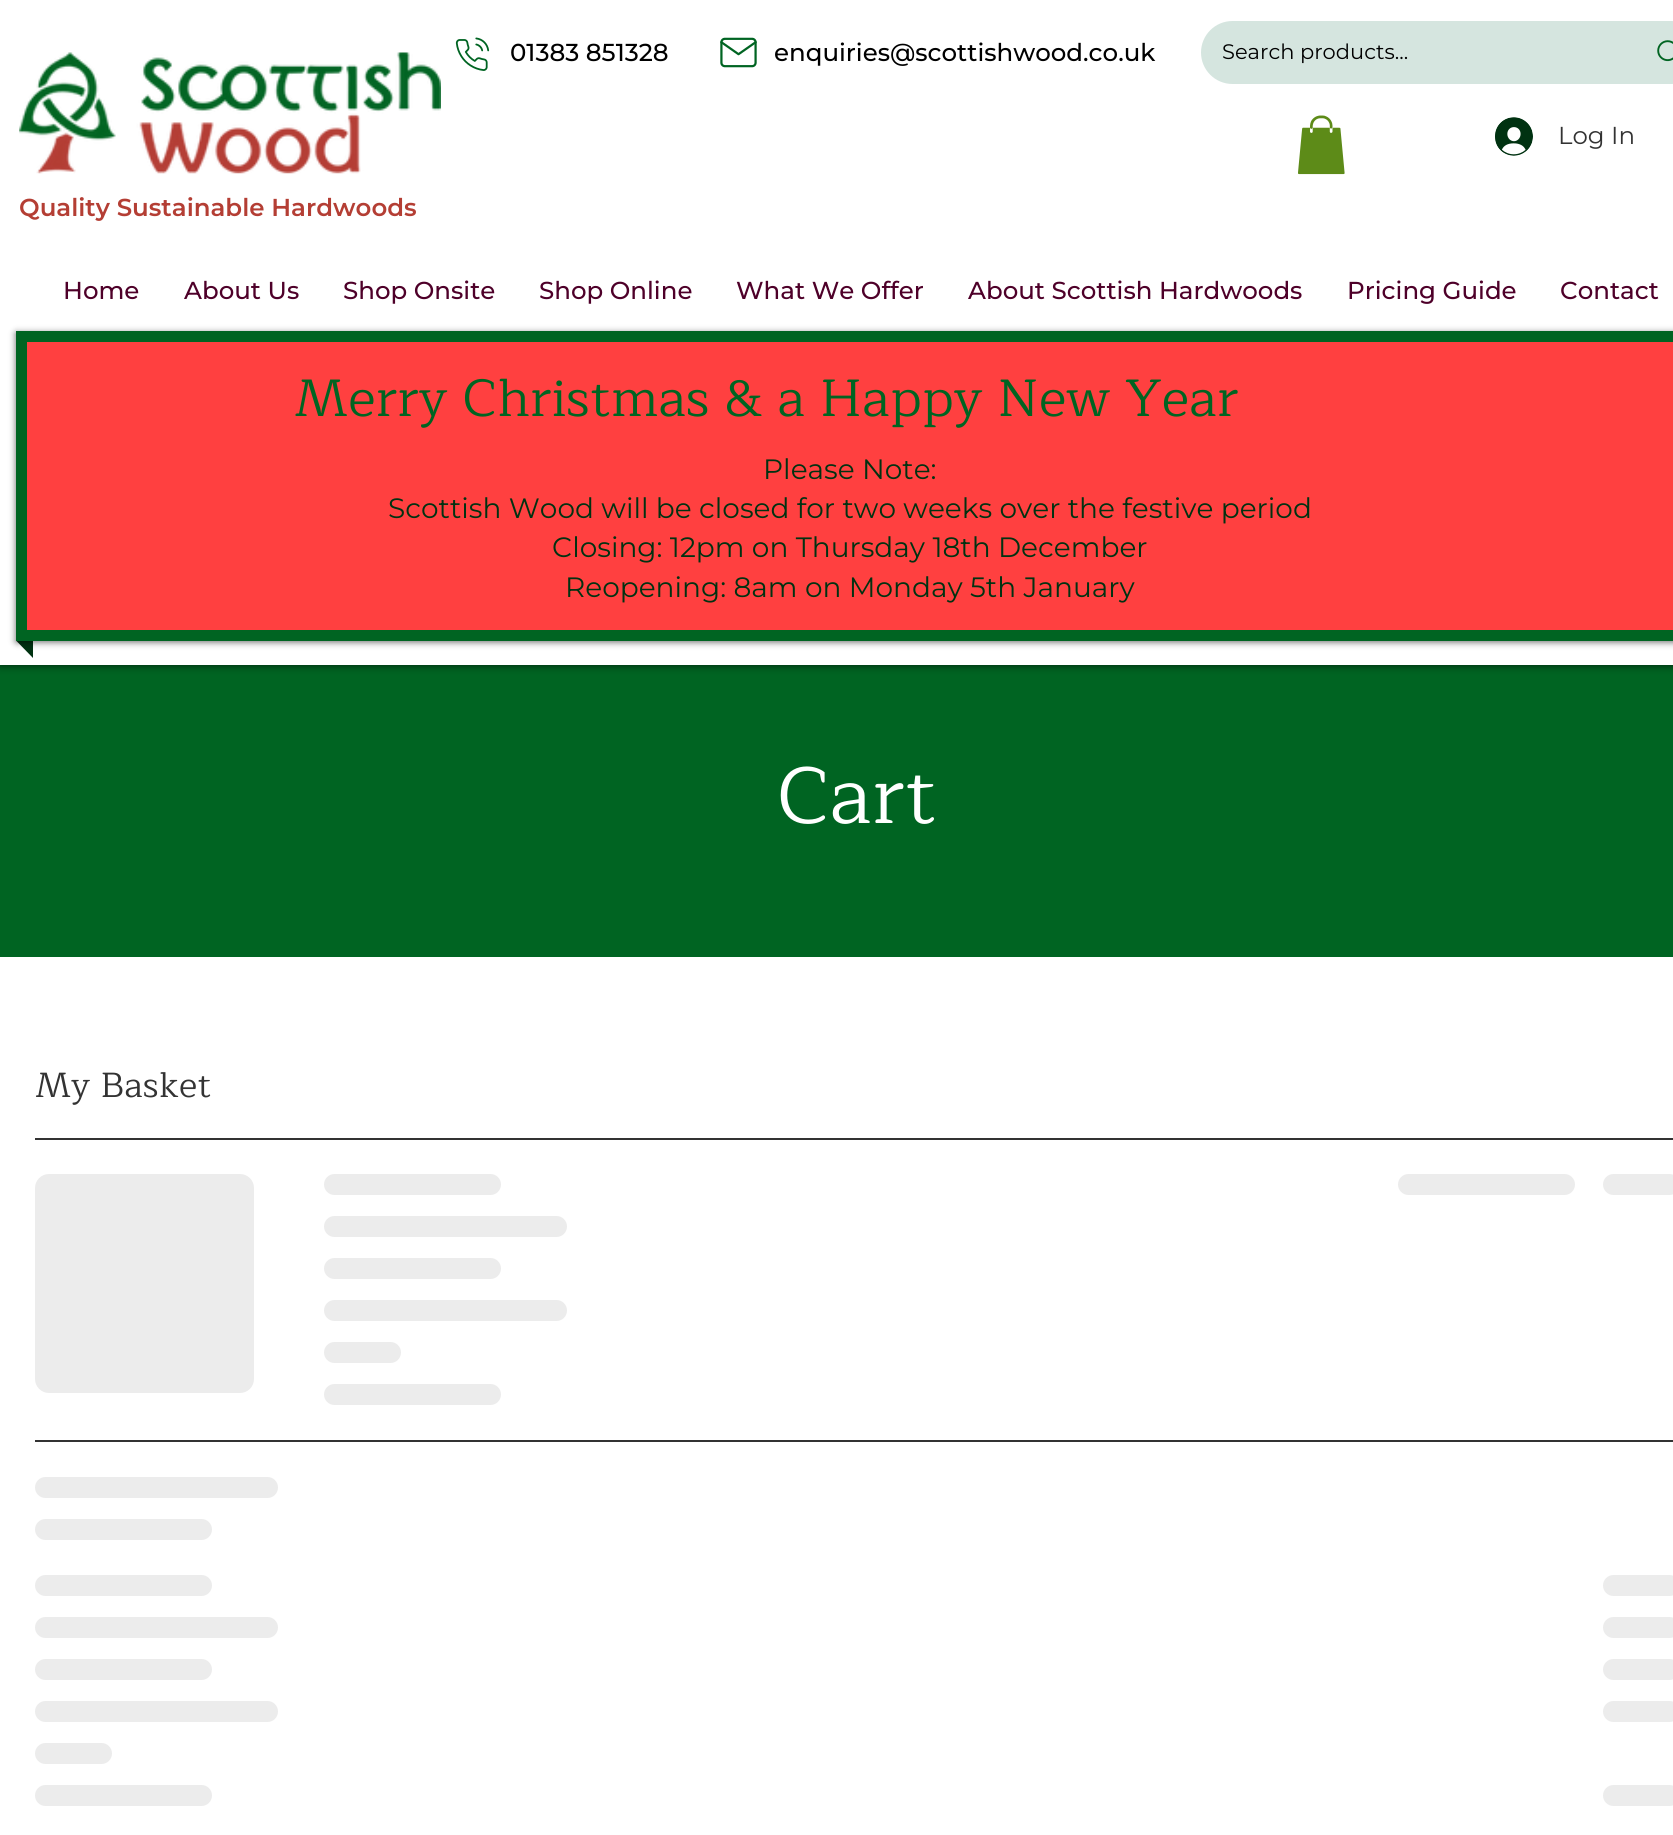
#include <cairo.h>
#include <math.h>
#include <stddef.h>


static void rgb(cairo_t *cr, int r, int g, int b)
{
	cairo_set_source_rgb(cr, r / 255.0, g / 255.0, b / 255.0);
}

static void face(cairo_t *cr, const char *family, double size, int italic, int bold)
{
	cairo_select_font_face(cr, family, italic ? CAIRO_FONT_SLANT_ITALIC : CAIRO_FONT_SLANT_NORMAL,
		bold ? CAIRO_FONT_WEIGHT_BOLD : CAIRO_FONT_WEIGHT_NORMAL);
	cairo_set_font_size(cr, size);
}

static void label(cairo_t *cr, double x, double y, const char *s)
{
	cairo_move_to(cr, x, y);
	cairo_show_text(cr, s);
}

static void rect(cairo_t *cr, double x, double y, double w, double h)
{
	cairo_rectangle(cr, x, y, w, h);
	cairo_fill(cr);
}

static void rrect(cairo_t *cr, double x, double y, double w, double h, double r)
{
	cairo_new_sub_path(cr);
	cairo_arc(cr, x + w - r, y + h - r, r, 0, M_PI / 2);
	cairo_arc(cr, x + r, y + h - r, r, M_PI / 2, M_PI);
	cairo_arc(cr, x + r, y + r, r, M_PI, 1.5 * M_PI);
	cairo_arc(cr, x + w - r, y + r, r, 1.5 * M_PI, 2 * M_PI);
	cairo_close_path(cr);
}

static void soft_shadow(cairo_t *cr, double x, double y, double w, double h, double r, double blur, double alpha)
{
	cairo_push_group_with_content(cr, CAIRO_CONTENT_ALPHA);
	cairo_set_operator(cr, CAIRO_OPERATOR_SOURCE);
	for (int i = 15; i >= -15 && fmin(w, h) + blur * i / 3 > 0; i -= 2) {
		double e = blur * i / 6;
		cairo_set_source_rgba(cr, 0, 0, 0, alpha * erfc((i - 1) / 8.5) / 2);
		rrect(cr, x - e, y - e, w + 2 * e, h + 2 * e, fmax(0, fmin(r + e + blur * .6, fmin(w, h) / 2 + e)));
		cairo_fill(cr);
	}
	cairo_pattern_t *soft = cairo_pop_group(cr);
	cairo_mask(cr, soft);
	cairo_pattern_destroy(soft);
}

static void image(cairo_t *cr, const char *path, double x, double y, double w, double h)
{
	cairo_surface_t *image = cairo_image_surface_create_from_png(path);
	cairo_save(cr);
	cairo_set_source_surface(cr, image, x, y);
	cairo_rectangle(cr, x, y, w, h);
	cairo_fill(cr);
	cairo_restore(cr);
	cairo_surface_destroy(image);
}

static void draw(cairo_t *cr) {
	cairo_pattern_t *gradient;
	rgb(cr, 0, 100, 34);
	cairo_paint(cr);
	rgb(cr, 0, 0, 0);
	soft_shadow(cr, 0, 0, 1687, 665, 0, 4.5, 0.7);
	rgb(cr, 255, 255, 255);
	rect(cr, 0, 0, 1673, 665);
	image(cr, "image0.png", 455, 37, 35, 34);
	image(cr, "image1.png", 720, 37, 37, 31);
	image(cr, "image2.png", 19, 52, 422, 122);
	face(cr, "Montserrat Medium", 24.5, 0, 0);
	rgb(cr, 0, 0, 0);
	label(cr, 510, 61, "01383 851328");
	label(cr, 774, 61, "enquiries@scottishwood.co.uk");
	rgb(cr, 213, 229, 223);
	rrect(cr, 1201, 21, 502, 63, 31.5);
	cairo_fill(cr);
	face(cr, "Montserrat", 21, 0, 0);
	rgb(cr, 0, 0, 0);
	label(cr, 1222, 59, "Search products...");
	image(cr, "image3.png", 1657, 40, 16, 22);
	image(cr, "image4.png", 1298, 115, 47, 60);
	image(cr, "image5.png", 1495, 117, 38, 39);
	face(cr, "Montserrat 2", 24.5, 0, 0);
	rgb(cr, 51, 51, 51);
	label(cr, 1558, 144, "Log In");
	face(cr, "Montserrat SemiBold", 24.5, 0, 0);
	rgb(cr, 180, 62, 52);
	label(cr, 19, 216, "Quality Sustainable Hardwoods");
	face(cr, "Montserrat Medium", 24.5, 0, 0);
	rgb(cr, 78, 0, 41);
	label(cr, 63, 299, "Home");
	label(cr, 184, 299, "About Us");
	label(cr, 343, 299, "Shop Onsite");
	label(cr, 539, 299, "Shop Online");
	label(cr, 736, 299, "What We Offer");
	label(cr, 968, 299, "About Scottish Hardwoods");
	label(cr, 1347, 299, "Pricing Guide");
	label(cr, 1560, 299, "Contact");
	rgb(cr, 0, 50, 17);
	cairo_new_path(cr);
	cairo_move_to(cr, 16, 640.5);
	cairo_line_to(cr, 33, 640.5);
	cairo_line_to(cr, 33, 658);
	cairo_close_path(cr);
	cairo_fill(cr);
	rgb(cr, 0, 0, 0);
	soft_shadow(cr, 16, 333, 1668, 309, 0, 3.5, 0.6);
	rgb(cr, 255, 64, 64);
	cairo_rectangle(cr, 21.5, 336.5, 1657, 299);
	cairo_fill_preserve(cr);
	rgb(cr, 0, 100, 34);
	cairo_set_line_width(cr, 11);
	cairo_stroke(cr);
	face(cr, "Maitree", 52.5, 0, 0);
	label(cr, 294, 416, "Merry Christmas & a Happy New Year");
	face(cr, "Montserrat 2", 28, 0, 0);
	rgb(cr, 0, 50, 17);
	label(cr, 763, 479, "Please Note:");
	label(cr, 388, 518, "Scottish Wood will be closed for two weeks over the festive period");
	label(cr, 552, 557, "Closing: 12pm on Thursday 18th December");
	label(cr, 565, 597, "Reopening: 8am on Monday 5th January");
	face(cr, "Maitree", 80, 0, 0);
	rgb(cr, 255, 255, 255);
	label(cr, 777, 823, "Cart");
	rect(cr, 0, 957, 1673, 878);
	rgb(cr, 51, 51, 51);
	rect(cr, 35, 1138, 1638, 2);
	face(cr, "Maitree", 35, 0, 0);
	label(cr, 35, 1097, "My Basket");
	gradient = cairo_pattern_create_linear(35, 1284, 910, 1284);
	cairo_pattern_add_color_stop_rgba(gradient, 0.25, 0.925, 0.925, 0.925, 1);
	cairo_pattern_add_color_stop_rgba(gradient, 0.37, 0.851, 0.851, 0.851, 1);
	cairo_pattern_add_color_stop_rgba(gradient, 0.63, 0.925, 0.925, 0.925, 1);
	cairo_set_source(cr, gradient);
	cairo_pattern_destroy(gradient);
	rrect(cr, 35, 1174, 219, 219, 14);
	cairo_fill(cr);
	gradient = cairo_pattern_create_linear(324, 1185, 1031, 1185);
	cairo_pattern_add_color_stop_rgba(gradient, 0.25, 0.925, 0.925, 0.925, 1);
	cairo_pattern_add_color_stop_rgba(gradient, 0.37, 0.851, 0.851, 0.851, 1);
	cairo_pattern_add_color_stop_rgba(gradient, 0.63, 0.925, 0.925, 0.925, 1);
	cairo_set_source(cr, gradient);
	cairo_pattern_destroy(gradient);
	rrect(cr, 324, 1174, 177, 21, 10.5);
	cairo_fill(cr);
	gradient = cairo_pattern_create_linear(324, 1227, 1297, 1227);
	cairo_pattern_add_color_stop_rgba(gradient, 0.25, 0.925, 0.925, 0.925, 1);
	cairo_pattern_add_color_stop_rgba(gradient, 0.37, 0.851, 0.851, 0.851, 1);
	cairo_pattern_add_color_stop_rgba(gradient, 0.63, 0.925, 0.925, 0.925, 1);
	cairo_set_source(cr, gradient);
	cairo_pattern_destroy(gradient);
	rrect(cr, 324, 1216, 243, 21, 10.5);
	cairo_fill(cr);
	gradient = cairo_pattern_create_linear(324, 1269, 1031, 1269);
	cairo_pattern_add_color_stop_rgba(gradient, 0.25, 0.925, 0.925, 0.925, 1);
	cairo_pattern_add_color_stop_rgba(gradient, 0.37, 0.851, 0.851, 0.851, 1);
	cairo_pattern_add_color_stop_rgba(gradient, 0.63, 0.925, 0.925, 0.925, 1);
	cairo_set_source(cr, gradient);
	cairo_pattern_destroy(gradient);
	rrect(cr, 324, 1258, 177, 21, 10.5);
	cairo_fill(cr);
	gradient = cairo_pattern_create_linear(324, 1311, 1297, 1311);
	cairo_pattern_add_color_stop_rgba(gradient, 0.25, 0.925, 0.925, 0.925, 1);
	cairo_pattern_add_color_stop_rgba(gradient, 0.37, 0.851, 0.851, 0.851, 1);
	cairo_pattern_add_color_stop_rgba(gradient, 0.63, 0.925, 0.925, 0.925, 1);
	cairo_set_source(cr, gradient);
	cairo_pattern_destroy(gradient);
	rrect(cr, 324, 1300, 243, 21, 10.5);
	cairo_fill(cr);
	gradient = cairo_pattern_create_linear(324, 1353, 632, 1353);
	cairo_pattern_add_color_stop_rgba(gradient, 0.25, 0.925, 0.925, 0.925, 1);
	cairo_pattern_add_color_stop_rgba(gradient, 0.37, 0.851, 0.851, 0.851, 1);
	cairo_pattern_add_color_stop_rgba(gradient, 0.63, 0.925, 0.925, 0.925, 1);
	cairo_set_source(cr, gradient);
	cairo_pattern_destroy(gradient);
	rrect(cr, 324, 1342, 77, 21, 10.5);
	cairo_fill(cr);
	gradient = cairo_pattern_create_linear(324, 1395, 1031, 1395);
	cairo_pattern_add_color_stop_rgba(gradient, 0.25, 0.925, 0.925, 0.925, 1);
	cairo_pattern_add_color_stop_rgba(gradient, 0.37, 0.851, 0.851, 0.851, 1);
	cairo_pattern_add_color_stop_rgba(gradient, 0.63, 0.925, 0.925, 0.925, 1);
	cairo_set_source(cr, gradient);
	cairo_pattern_destroy(gradient);
	rrect(cr, 324, 1384, 177, 21, 10.5);
	cairo_fill(cr);
	gradient = cairo_pattern_create_linear(1398, 1185, 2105, 1185);
	cairo_pattern_add_color_stop_rgba(gradient, 0.25, 0.925, 0.925, 0.925, 1);
	cairo_pattern_add_color_stop_rgba(gradient, 0.37, 0.851, 0.851, 0.851, 1);
	cairo_pattern_add_color_stop_rgba(gradient, 0.63, 0.925, 0.925, 0.925, 1);
	cairo_set_source(cr, gradient);
	cairo_pattern_destroy(gradient);
	rrect(cr, 1398, 1174, 177, 21, 10.5);
	cairo_fill(cr);
	gradient = cairo_pattern_create_linear(1603, 1185, 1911, 1185);
	cairo_pattern_add_color_stop_rgba(gradient, 0.25, 0.925, 0.925, 0.925, 1);
	cairo_pattern_add_color_stop_rgba(gradient, 0.37, 0.851, 0.851, 0.851, 1);
	cairo_pattern_add_color_stop_rgba(gradient, 0.63, 0.925, 0.925, 0.925, 1);
	cairo_set_source(cr, gradient);
	cairo_pattern_destroy(gradient);
	rrect(cr, 1603, 1174, 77, 21, 10.5);
	cairo_fill(cr);
	rgb(cr, 51, 51, 51);
	rect(cr, 35, 1440, 1638, 2);
	gradient = cairo_pattern_create_linear(35, 1488, 1008, 1488);
	cairo_pattern_add_color_stop_rgba(gradient, 0.25, 0.925, 0.925, 0.925, 1);
	cairo_pattern_add_color_stop_rgba(gradient, 0.37, 0.851, 0.851, 0.851, 1);
	cairo_pattern_add_color_stop_rgba(gradient, 0.63, 0.925, 0.925, 0.925, 1);
	cairo_set_source(cr, gradient);
	cairo_pattern_destroy(gradient);
	rrect(cr, 35, 1477, 243, 21, 10.5);
	cairo_fill(cr);
	gradient = cairo_pattern_create_linear(35, 1530, 742, 1530);
	cairo_pattern_add_color_stop_rgba(gradient, 0.25, 0.925, 0.925, 0.925, 1);
	cairo_pattern_add_color_stop_rgba(gradient, 0.37, 0.851, 0.851, 0.851, 1);
	cairo_pattern_add_color_stop_rgba(gradient, 0.63, 0.925, 0.925, 0.925, 1);
	cairo_set_source(cr, gradient);
	cairo_pattern_destroy(gradient);
	rrect(cr, 35, 1519, 177, 21, 10.5);
	cairo_fill(cr);
	gradient = cairo_pattern_create_linear(35, 1586, 742, 1586);
	cairo_pattern_add_color_stop_rgba(gradient, 0.25, 0.925, 0.925, 0.925, 1);
	cairo_pattern_add_color_stop_rgba(gradient, 0.37, 0.851, 0.851, 0.851, 1);
	cairo_pattern_add_color_stop_rgba(gradient, 0.63, 0.925, 0.925, 0.925, 1);
	cairo_set_source(cr, gradient);
	cairo_pattern_destroy(gradient);
	rrect(cr, 35, 1575, 177, 21, 10.5);
	cairo_fill(cr);
	gradient = cairo_pattern_create_linear(1603, 1586, 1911, 1586);
	cairo_pattern_add_color_stop_rgba(gradient, 0.25, 0.925, 0.925, 0.925, 1);
	cairo_pattern_add_color_stop_rgba(gradient, 0.37, 0.851, 0.851, 0.851, 1);
	cairo_pattern_add_color_stop_rgba(gradient, 0.63, 0.925, 0.925, 0.925, 1);
	cairo_set_source(cr, gradient);
	cairo_pattern_destroy(gradient);
	rrect(cr, 1603, 1575, 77, 21, 10.5);
	cairo_fill(cr);
	gradient = cairo_pattern_create_linear(35, 1628, 1008, 1628);
	cairo_pattern_add_color_stop_rgba(gradient, 0.25, 0.925, 0.925, 0.925, 1);
	cairo_pattern_add_color_stop_rgba(gradient, 0.37, 0.851, 0.851, 0.851, 1);
	cairo_pattern_add_color_stop_rgba(gradient, 0.63, 0.925, 0.925, 0.925, 1);
	cairo_set_source(cr, gradient);
	cairo_pattern_destroy(gradient);
	rrect(cr, 35, 1617, 243, 21, 10.5);
	cairo_fill(cr);
	gradient = cairo_pattern_create_linear(1603, 1628, 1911, 1628);
	cairo_pattern_add_color_stop_rgba(gradient, 0.25, 0.925, 0.925, 0.925, 1);
	cairo_pattern_add_color_stop_rgba(gradient, 0.37, 0.851, 0.851, 0.851, 1);
	cairo_pattern_add_color_stop_rgba(gradient, 0.63, 0.925, 0.925, 0.925, 1);
	cairo_set_source(cr, gradient);
	cairo_pattern_destroy(gradient);
	rrect(cr, 1603, 1617, 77, 21, 10.5);
	cairo_fill(cr);
	gradient = cairo_pattern_create_linear(35, 1670, 742, 1670);
	cairo_pattern_add_color_stop_rgba(gradient, 0.25, 0.925, 0.925, 0.925, 1);
	cairo_pattern_add_color_stop_rgba(gradient, 0.37, 0.851, 0.851, 0.851, 1);
	cairo_pattern_add_color_stop_rgba(gradient, 0.63, 0.925, 0.925, 0.925, 1);
	cairo_set_source(cr, gradient);
	cairo_pattern_destroy(gradient);
	rrect(cr, 35, 1659, 177, 21, 10.5);
	cairo_fill(cr);
	gradient = cairo_pattern_create_linear(1603, 1670, 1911, 1670);
	cairo_pattern_add_color_stop_rgba(gradient, 0.25, 0.925, 0.925, 0.925, 1);
	cairo_pattern_add_color_stop_rgba(gradient, 0.37, 0.851, 0.851, 0.851, 1);
	cairo_pattern_add_color_stop_rgba(gradient, 0.63, 0.925, 0.925, 0.925, 1);
	cairo_set_source(cr, gradient);
	cairo_pattern_destroy(gradient);
	rrect(cr, 1603, 1659, 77, 21, 10.5);
	cairo_fill(cr);
	gradient = cairo_pattern_create_linear(35, 1712, 1008, 1712);
	cairo_pattern_add_color_stop_rgba(gradient, 0.25, 0.925, 0.925, 0.925, 1);
	cairo_pattern_add_color_stop_rgba(gradient, 0.37, 0.851, 0.851, 0.851, 1);
	cairo_pattern_add_color_stop_rgba(gradient, 0.63, 0.925, 0.925, 0.925, 1);
	cairo_set_source(cr, gradient);
	cairo_pattern_destroy(gradient);
	rrect(cr, 35, 1701, 243, 21, 10.5);
	cairo_fill(cr);
	gradient = cairo_pattern_create_linear(1603, 1712, 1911, 1712);
	cairo_pattern_add_color_stop_rgba(gradient, 0.25, 0.925, 0.925, 0.925, 1);
	cairo_pattern_add_color_stop_rgba(gradient, 0.37, 0.851, 0.851, 0.851, 1);
	cairo_pattern_add_color_stop_rgba(gradient, 0.63, 0.925, 0.925, 0.925, 1);
	cairo_set_source(cr, gradient);
	cairo_pattern_destroy(gradient);
	rrect(cr, 1603, 1701, 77, 21, 10.5);
	cairo_fill(cr);
	gradient = cairo_pattern_create_linear(35, 1754, 343, 1754);
	cairo_pattern_add_color_stop_rgba(gradient, 0.25, 0.925, 0.925, 0.925, 1);
	cairo_pattern_add_color_stop_rgba(gradient, 0.37, 0.851, 0.851, 0.851, 1);
	cairo_pattern_add_color_stop_rgba(gradient, 0.63, 0.925, 0.925, 0.925, 1);
	cairo_set_source(cr, gradient);
	cairo_pattern_destroy(gradient);
	rrect(cr, 35, 1743, 77, 21, 10.5);
	cairo_fill(cr);
	gradient = cairo_pattern_create_linear(35, 1796, 742, 1796);
	cairo_pattern_add_color_stop_rgba(gradient, 0.25, 0.925, 0.925, 0.925, 1);
	cairo_pattern_add_color_stop_rgba(gradient, 0.37, 0.851, 0.851, 0.851, 1);
	cairo_pattern_add_color_stop_rgba(gradient, 0.63, 0.925, 0.925, 0.925, 1);
	cairo_set_source(cr, gradient);
	cairo_pattern_destroy(gradient);
	rrect(cr, 35, 1785, 177, 21, 10.5);
	cairo_fill(cr);
	gradient = cairo_pattern_create_linear(1603, 1796, 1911, 1796);
	cairo_pattern_add_color_stop_rgba(gradient, 0.25, 0.925, 0.925, 0.925, 1);
	cairo_pattern_add_color_stop_rgba(gradient, 0.37, 0.851, 0.851, 0.851, 1);
	cairo_pattern_add_color_stop_rgba(gradient, 0.63, 0.925, 0.925, 0.925, 1);
	cairo_set_source(cr, gradient);
	cairo_pattern_destroy(gradient);
	rrect(cr, 1603, 1785, 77, 21, 10.5);
	cairo_fill(cr);
}

int main(void) {
	cairo_surface_t *surface = cairo_image_surface_create(CAIRO_FORMAT_RGB24, 1673, 1835);
	cairo_t *cr = cairo_create(surface);
	cairo_font_options_t *options = cairo_font_options_create();
	cairo_font_options_set_hint_metrics(options, CAIRO_HINT_METRICS_OFF);
	cairo_font_options_set_hint_style(options, CAIRO_HINT_STYLE_NONE);
	cairo_set_font_options(cr, options);
	cairo_set_miter_limit(cr, 4);
	draw(cr);
	cairo_surface_write_to_png(surface, "render.png");
	cairo_font_options_destroy(options);
	cairo_destroy(cr);
	cairo_surface_destroy(surface);
	return 0;
}
